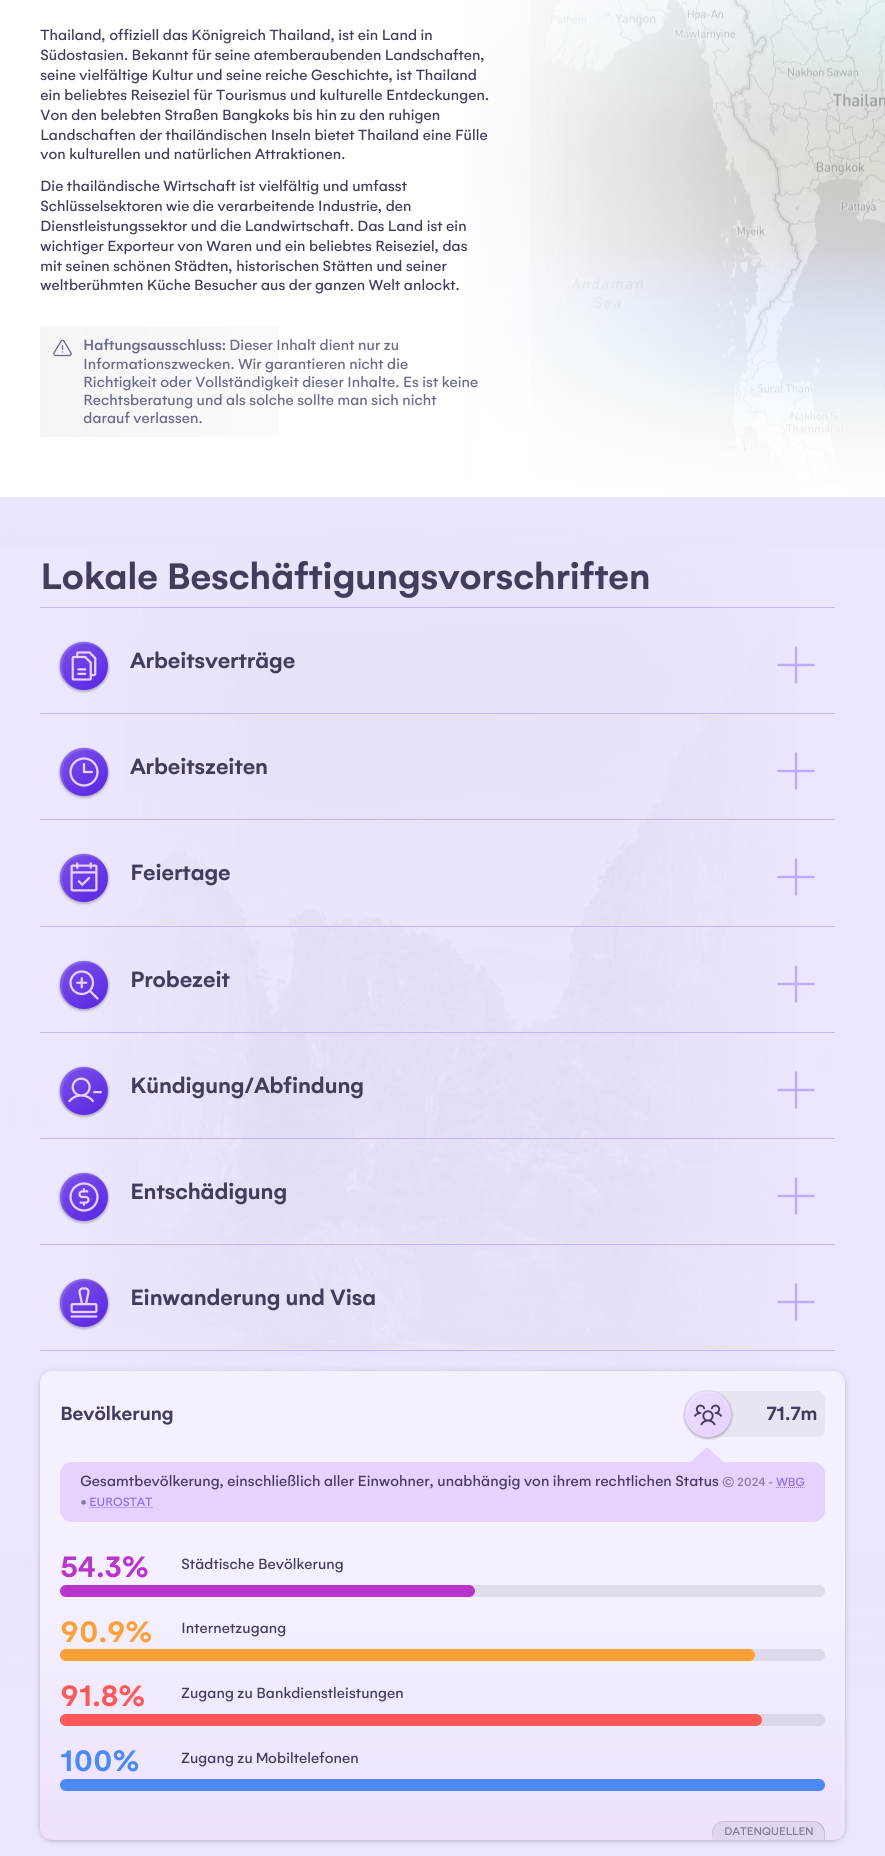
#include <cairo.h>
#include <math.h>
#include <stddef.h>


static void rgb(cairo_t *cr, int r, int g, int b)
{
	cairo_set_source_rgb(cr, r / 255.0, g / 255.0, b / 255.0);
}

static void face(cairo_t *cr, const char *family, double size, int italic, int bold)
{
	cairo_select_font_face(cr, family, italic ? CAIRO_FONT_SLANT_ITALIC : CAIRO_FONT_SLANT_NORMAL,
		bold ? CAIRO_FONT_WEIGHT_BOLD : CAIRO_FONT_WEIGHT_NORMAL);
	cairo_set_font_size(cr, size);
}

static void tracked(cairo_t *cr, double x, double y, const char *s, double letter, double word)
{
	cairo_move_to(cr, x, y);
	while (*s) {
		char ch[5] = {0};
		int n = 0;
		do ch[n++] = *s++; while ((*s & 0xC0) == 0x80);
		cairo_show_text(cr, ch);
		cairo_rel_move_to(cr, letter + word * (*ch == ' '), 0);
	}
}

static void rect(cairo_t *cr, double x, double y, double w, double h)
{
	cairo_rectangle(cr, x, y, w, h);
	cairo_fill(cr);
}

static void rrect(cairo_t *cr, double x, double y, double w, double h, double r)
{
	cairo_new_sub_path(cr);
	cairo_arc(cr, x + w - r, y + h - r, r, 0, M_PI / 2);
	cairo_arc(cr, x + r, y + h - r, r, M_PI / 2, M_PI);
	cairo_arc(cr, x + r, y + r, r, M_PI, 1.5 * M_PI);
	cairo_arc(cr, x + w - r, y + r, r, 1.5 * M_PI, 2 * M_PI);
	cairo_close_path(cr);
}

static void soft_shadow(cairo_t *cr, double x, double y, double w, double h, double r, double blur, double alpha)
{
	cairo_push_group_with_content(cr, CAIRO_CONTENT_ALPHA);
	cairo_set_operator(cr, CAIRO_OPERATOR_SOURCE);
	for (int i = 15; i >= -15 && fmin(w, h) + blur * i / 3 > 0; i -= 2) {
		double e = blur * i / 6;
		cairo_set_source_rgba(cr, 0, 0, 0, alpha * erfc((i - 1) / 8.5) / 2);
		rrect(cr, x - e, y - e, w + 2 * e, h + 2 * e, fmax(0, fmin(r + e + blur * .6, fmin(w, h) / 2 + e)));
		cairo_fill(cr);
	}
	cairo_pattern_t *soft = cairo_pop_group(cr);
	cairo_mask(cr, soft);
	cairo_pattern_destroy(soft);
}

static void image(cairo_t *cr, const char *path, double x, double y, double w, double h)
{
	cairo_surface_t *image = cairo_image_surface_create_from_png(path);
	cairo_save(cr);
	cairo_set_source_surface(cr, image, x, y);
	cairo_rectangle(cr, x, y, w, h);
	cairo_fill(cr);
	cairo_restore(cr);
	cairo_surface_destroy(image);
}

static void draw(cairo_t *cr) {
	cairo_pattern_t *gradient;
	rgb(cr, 255, 255, 255);
	cairo_paint(cr);
	rgb(cr, 237, 231, 255);
	rect(cr, 0, 1697, 885, 3);
	image(cr, "image2.png", 530, 0, 355, 496);
	image(cr, "image0.png", 464, 0, 421, 494);
	gradient = cairo_pattern_create_linear(442, -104, 443, 497);
	cairo_pattern_add_color_stop_rgba(gradient, 0, 1, 1, 1, 0.3);
	cairo_pattern_add_color_stop_rgba(gradient, 0.42, 1, 1, 1, 0);
	cairo_set_source(cr, gradient);
	cairo_pattern_destroy(gradient);
	rect(cr, 551, 0, 334, 113);
	gradient = cairo_pattern_create_linear(443, 497, 443, -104);
	cairo_pattern_add_color_stop_rgba(gradient, 0, 1, 1, 1, 1);
	cairo_pattern_add_color_stop_rgba(gradient, 0.42, 1, 1, 1, 0);
	cairo_set_source(cr, gradient);
	cairo_pattern_destroy(gradient);
	rect(cr, 474, 255, 411, 241);
	face(cr, "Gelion", 16, 0, 0);
	rgb(cr, 69, 60, 93);
	tracked(cr, 40, 40, "Thailand, offiziell das Königreich Thailand, ist ein Land in", -0.4, 0);
	tracked(cr, 40, 60, "Südostasien. Bekannt für seine atemberaubenden Landschaften,", -0.4, 0);
	tracked(cr, 40, 80, "seine vielfältige Kultur und seine reiche Geschichte, ist Thailand", -0.4, 0);
	tracked(cr, 40, 100, "ein beliebtes Reiseziel für Tourismus und kulturelle Entdeckungen.", -0.4, 0);
	tracked(cr, 40, 120, "Von den belebten Straßen Bangkoks bis hin zu den ruhigen", -0.4, 0);
	tracked(cr, 40, 140, "Landschaften der thailändischen Inseln bietet Thailand eine Fülle", -0.4, 0);
	tracked(cr, 40, 159, "von kulturellen und natürlichen Attraktionen.", -0.4, 0);
	tracked(cr, 40, 191, "Die thailändische Wirtschaft ist vielfältig und umfasst", -0.4, 0);
	tracked(cr, 40, 211, "Schlüsselsektoren wie die verarbeitende Industrie, den", -0.4, 0);
	tracked(cr, 40, 231, "Dienstleistungssektor und die Landwirtschaft. Das Land ist ein", -0.4, 0);
	tracked(cr, 40, 251, "wichtiger Exporteur von Waren und ein beliebtes Reiseziel, das", -0.4, 0);
	tracked(cr, 40, 271, "mit seinen schönen Städten, historischen Stätten und seiner", -0.4, 0);
	tracked(cr, 40, 290, "weltberühmten Küche Besucher aus der ganzen Welt anlockt.", -0.4, 0);
	gradient = cairo_pattern_create_linear(-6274, 382, 491, 382);
	cairo_pattern_add_color_stop_rgba(gradient, 0, 0.271, 0.235, 0.365, 1);
	cairo_pattern_add_color_stop_rgba(gradient, 0.99, 0.271, 0.235, 0.365, 0);
	cairo_set_source(cr, gradient);
	cairo_pattern_destroy(gradient);
	rect(cr, 40, 326, 239, 111);
	image(cr, "image1.png", 53, 339, 19, 18);
	face(cr, "Gelion Medium", 16, 0, 0);
	rgb(cr, 104, 107, 138);
	tracked(cr, 83, 350, "Haftungsausschluss:", -0.4, 0);
	face(cr, "Gelion", 16, 0, 0);
	tracked(cr, 229, 350, "Dieser Inhalt dient nur zu", -0.4, 0);
	tracked(cr, 83, 369, "Informationszwecken. Wir garantieren nicht die", -0.4, 0);
	tracked(cr, 83, 387, "Richtigkeit oder Vollständigkeit dieser Inhalte. Es ist keine", -0.4, 0);
	tracked(cr, 83, 405, "Rechtsberatung und als solche sollte man sich nicht", -0.4, 0);
	tracked(cr, 83, 423, "darauf verlassen.", -0.4, 0);
	image(cr, "image3.png", 0, 497, 885, 1200);
	gradient = cairo_pattern_create_linear(442, 497, 443, 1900);
	cairo_pattern_add_color_stop_rgba(gradient, 0, 0.925, 0.902, 1, 0.95);
	cairo_pattern_add_color_stop_rgba(gradient, 0.13, 0.925, 0.902, 1, 0);
	cairo_pattern_add_color_stop_rgba(gradient, 0.43, 0.925, 0.902, 1, 0);
	cairo_pattern_add_color_stop_rgba(gradient, 0.86, 0.925, 0.902, 1, 1);
	cairo_set_source(cr, gradient);
	cairo_pattern_destroy(gradient);
	rect(cr, 0, 497, 885, 1359);
	gradient = cairo_pattern_create_linear(0, 1199, 885, 1199);
	cairo_pattern_add_color_stop_rgba(gradient, 0.1, 0.925, 0.902, 1, 0.95);
	cairo_pattern_add_color_stop_rgba(gradient, 0.3, 0.925, 0.902, 1, 0);
	cairo_pattern_add_color_stop_rgba(gradient, 0.7, 0.925, 0.902, 1, 0);
	cairo_pattern_add_color_stop_rgba(gradient, 0.9, 0.925, 0.902, 1, 0.95);
	cairo_set_source(cr, gradient);
	cairo_pattern_destroy(gradient);
	rect(cr, 0, 547, 885, 1005);
	face(cr, "Gelion SemiBold", 40, 0, 0);
	rgb(cr, 69, 60, 93);
	tracked(cr, 40, 589, "Lokale Beschäftigungsvorschriften", -0.95, 0);
	rgb(cr, 199, 179, 255);
	rect(cr, 40, 607, 795, 1);
	rect(cr, 40, 713, 795, 1);
	rgb(cr, 0, 0, 0);
	soft_shadow(cr, 59, 642, 50, 50, 25, 1, 0.23);
	rgb(cr, 89, 38, 227);
	cairo_arc(cr, 84, 666, 24, 0, 2 * M_PI);
	cairo_fill(cr);
	gradient = cairo_pattern_create_linear(103, 693, 65, 639);
	cairo_pattern_add_color_stop_rgba(gradient, 0, 1, 1, 1, 0);
	cairo_pattern_add_color_stop_rgba(gradient, 1, 1, 1, 1, 0.2);
	cairo_set_source(cr, gradient);
	cairo_pattern_destroy(gradient);
	cairo_arc(cr, 84, 666, 24, 0, 2 * M_PI);
	cairo_fill(cr);
	cairo_set_source_rgba(cr, 1, 1, 1, 0.14);
	cairo_new_path(cr);
	cairo_move_to(cr, 85, 644);
	cairo_curve_to(cr, 104, 644, 111, 662, 106, 675);
	cairo_curve_to(cr, 115, 654, 90, 633, 71, 646);
	cairo_curve_to(cr, 67, 649, 64, 652, 62, 657);
	cairo_curve_to(cr, 59, 663, 59, 669, 62, 675);
	cairo_curve_to(cr, 66, 684, 75, 690, 84, 690);
	cairo_curve_to(cr, 55, 689, 55, 644, 85, 644);
	cairo_close_path(cr);
	cairo_fill(cr);
	image(cr, "image4.png", 71, 651, 26, 30);
	face(cr, "Gelion SemiBold", 24, 0, 0);
	rgb(cr, 69, 60, 93);
	tracked(cr, 130, 668, "Arbeitsverträge", -0.6, 0);
	cairo_new_path(cr);
	cairo_move_to(cr, 796, 647.5);
	cairo_line_to(cr, 796, 682.5);
	cairo_move_to(cr, 778.5, 665);
	cairo_line_to(cr, 813.5, 665);
	rgb(cr, 188, 172, 255);
	cairo_set_line_width(cr, 2.4);
	cairo_set_line_cap(cr, CAIRO_LINE_CAP_ROUND);
	cairo_set_line_join(cr, CAIRO_LINE_JOIN_ROUND);
	cairo_stroke(cr);
	rgb(cr, 199, 179, 255);
	rect(cr, 40, 819, 795, 1);
	rgb(cr, 0, 0, 0);
	soft_shadow(cr, 59, 748, 50, 50, 25, 1, 0.23);
	rgb(cr, 89, 38, 227);
	cairo_arc(cr, 84, 772, 24, 0, 2 * M_PI);
	cairo_fill(cr);
	gradient = cairo_pattern_create_linear(103, 799, 65, 745);
	cairo_pattern_add_color_stop_rgba(gradient, 0, 1, 1, 1, 0);
	cairo_pattern_add_color_stop_rgba(gradient, 1, 1, 1, 1, 0.2);
	cairo_set_source(cr, gradient);
	cairo_pattern_destroy(gradient);
	cairo_arc(cr, 84, 772, 24, 0, 2 * M_PI);
	cairo_fill(cr);
	cairo_set_source_rgba(cr, 1, 1, 1, 0.14);
	cairo_new_path(cr);
	cairo_move_to(cr, 85, 750);
	cairo_curve_to(cr, 104, 750, 111, 768, 106, 781);
	cairo_curve_to(cr, 115, 760, 90, 739, 71, 752);
	cairo_curve_to(cr, 67, 755, 64, 758, 62, 763);
	cairo_curve_to(cr, 59, 769, 59, 775, 62, 781);
	cairo_curve_to(cr, 66, 790, 75, 796, 84, 796);
	cairo_curve_to(cr, 55, 795, 55, 750, 85, 750);
	cairo_close_path(cr);
	cairo_fill(cr);
	image(cr, "image5.png", 69, 757, 30, 30);
	rgb(cr, 69, 60, 93);
	tracked(cr, 130, 774, "Arbeitszeiten", -0.6, 0);
	cairo_new_path(cr);
	cairo_move_to(cr, 796, 753.5);
	cairo_line_to(cr, 796, 788.5);
	cairo_move_to(cr, 778.5, 771);
	cairo_line_to(cr, 813.5, 771);
	rgb(cr, 188, 172, 255);
	cairo_stroke(cr);
	rgb(cr, 199, 179, 255);
	rect(cr, 40, 926, 795, 1);
	rgb(cr, 0, 0, 0);
	soft_shadow(cr, 59, 854, 50, 50, 25, 1, 0.23);
	rgb(cr, 89, 38, 227);
	cairo_arc(cr, 84, 878, 24, 0, 2 * M_PI);
	cairo_fill(cr);
	gradient = cairo_pattern_create_linear(103, 905, 65, 851);
	cairo_pattern_add_color_stop_rgba(gradient, 0, 1, 1, 1, 0);
	cairo_pattern_add_color_stop_rgba(gradient, 1, 1, 1, 1, 0.2);
	cairo_set_source(cr, gradient);
	cairo_pattern_destroy(gradient);
	cairo_arc(cr, 84, 878, 24, 0, 2 * M_PI);
	cairo_fill(cr);
	cairo_set_source_rgba(cr, 1, 1, 1, 0.14);
	cairo_new_path(cr);
	cairo_move_to(cr, 85, 856);
	cairo_curve_to(cr, 104, 856, 111, 874, 106, 887);
	cairo_curve_to(cr, 115, 866, 90, 845, 71, 858);
	cairo_curve_to(cr, 67, 861, 64, 864, 62, 869);
	cairo_curve_to(cr, 59, 875, 59, 881, 62, 887);
	cairo_curve_to(cr, 66, 896, 75, 902, 84, 902);
	cairo_curve_to(cr, 55, 901, 55, 856, 85, 856);
	cairo_close_path(cr);
	cairo_fill(cr);
	image(cr, "image6.png", 70, 862, 28, 30);
	rgb(cr, 69, 60, 93);
	tracked(cr, 130, 880, "Feiertage", -0.6, 0);
	cairo_new_path(cr);
	cairo_move_to(cr, 796, 859.5);
	cairo_line_to(cr, 796, 894.5);
	cairo_move_to(cr, 778.5, 877);
	cairo_line_to(cr, 813.5, 877);
	rgb(cr, 188, 172, 255);
	cairo_stroke(cr);
	rgb(cr, 199, 179, 255);
	rect(cr, 40, 1032, 795, 1);
	rgb(cr, 0, 0, 0);
	soft_shadow(cr, 59, 961, 50, 50, 25, 1, 0.23);
	rgb(cr, 89, 38, 227);
	cairo_arc(cr, 84, 985, 24, 0, 2 * M_PI);
	cairo_fill(cr);
	gradient = cairo_pattern_create_linear(103, 1012, 65, 958);
	cairo_pattern_add_color_stop_rgba(gradient, 0, 1, 1, 1, 0);
	cairo_pattern_add_color_stop_rgba(gradient, 1, 1, 1, 1, 0.2);
	cairo_set_source(cr, gradient);
	cairo_pattern_destroy(gradient);
	cairo_arc(cr, 84, 985, 24, 0, 2 * M_PI);
	cairo_fill(cr);
	cairo_set_source_rgba(cr, 1, 1, 1, 0.14);
	cairo_new_path(cr);
	cairo_move_to(cr, 85, 963);
	cairo_curve_to(cr, 104, 963, 111, 981, 106, 994);
	cairo_curve_to(cr, 115, 973, 90, 952, 71, 965);
	cairo_curve_to(cr, 67, 968, 64, 971, 62, 976);
	cairo_curve_to(cr, 59, 982, 59, 988, 62, 994);
	cairo_curve_to(cr, 66, 1003, 75, 1009, 84, 1009);
	cairo_curve_to(cr, 55, 1008, 55, 963, 85, 963);
	cairo_close_path(cr);
	cairo_fill(cr);
	image(cr, "image7.png", 69, 970, 30, 30);
	rgb(cr, 69, 60, 93);
	tracked(cr, 130, 987, "Probezeit", -0.6, 0);
	cairo_new_path(cr);
	cairo_move_to(cr, 796, 966.5);
	cairo_line_to(cr, 796, 1001.5);
	cairo_move_to(cr, 778.5, 984);
	cairo_line_to(cr, 813.5, 984);
	rgb(cr, 188, 172, 255);
	cairo_stroke(cr);
	rgb(cr, 199, 179, 255);
	rect(cr, 40, 1138, 795, 1);
	rgb(cr, 0, 0, 0);
	soft_shadow(cr, 59, 1067, 50, 50, 25, 1, 0.23);
	rgb(cr, 89, 38, 227);
	cairo_arc(cr, 84, 1091, 24, 0, 2 * M_PI);
	cairo_fill(cr);
	gradient = cairo_pattern_create_linear(103, 1118, 65, 1064);
	cairo_pattern_add_color_stop_rgba(gradient, 0, 1, 1, 1, 0);
	cairo_pattern_add_color_stop_rgba(gradient, 1, 1, 1, 1, 0.2);
	cairo_set_source(cr, gradient);
	cairo_pattern_destroy(gradient);
	cairo_arc(cr, 84, 1091, 24, 0, 2 * M_PI);
	cairo_fill(cr);
	cairo_set_source_rgba(cr, 1, 1, 1, 0.14);
	cairo_new_path(cr);
	cairo_move_to(cr, 85, 1069);
	cairo_curve_to(cr, 104, 1069, 111, 1087, 106, 1100);
	cairo_curve_to(cr, 115, 1079, 90, 1058, 71, 1071);
	cairo_curve_to(cr, 67, 1074, 64, 1077, 62, 1082);
	cairo_curve_to(cr, 59, 1088, 59, 1094, 62, 1100);
	cairo_curve_to(cr, 66, 1109, 75, 1115, 84, 1115);
	cairo_curve_to(cr, 55, 1114, 55, 1069, 85, 1069);
	cairo_close_path(cr);
	cairo_fill(cr);
	image(cr, "image8.png", 68, 1077, 34, 26);
	rgb(cr, 69, 60, 93);
	tracked(cr, 130, 1093, "Kündigung/Abfindung", -0.6, 0);
	cairo_new_path(cr);
	cairo_move_to(cr, 796, 1072.5);
	cairo_line_to(cr, 796, 1107.5);
	cairo_move_to(cr, 778.5, 1090);
	cairo_line_to(cr, 813.5, 1090);
	rgb(cr, 188, 172, 255);
	cairo_stroke(cr);
	rgb(cr, 199, 179, 255);
	rect(cr, 40, 1244, 795, 1);
	rgb(cr, 0, 0, 0);
	soft_shadow(cr, 59, 1173, 50, 50, 25, 1, 0.23);
	rgb(cr, 89, 38, 227);
	cairo_arc(cr, 84, 1197, 24, 0, 2 * M_PI);
	cairo_fill(cr);
	gradient = cairo_pattern_create_linear(103, 1224, 65, 1170);
	cairo_pattern_add_color_stop_rgba(gradient, 0, 1, 1, 1, 0);
	cairo_pattern_add_color_stop_rgba(gradient, 1, 1, 1, 1, 0.2);
	cairo_set_source(cr, gradient);
	cairo_pattern_destroy(gradient);
	cairo_arc(cr, 84, 1197, 24, 0, 2 * M_PI);
	cairo_fill(cr);
	cairo_set_source_rgba(cr, 1, 1, 1, 0.14);
	cairo_new_path(cr);
	cairo_move_to(cr, 85, 1175);
	cairo_curve_to(cr, 104, 1175, 111, 1193, 106, 1206);
	cairo_curve_to(cr, 115, 1185, 90, 1164, 71, 1177);
	cairo_curve_to(cr, 67, 1180, 64, 1183, 62, 1188);
	cairo_curve_to(cr, 59, 1194, 59, 1200, 62, 1206);
	cairo_curve_to(cr, 66, 1215, 75, 1221, 84, 1221);
	cairo_curve_to(cr, 55, 1220, 55, 1175, 85, 1175);
	cairo_close_path(cr);
	cairo_fill(cr);
	image(cr, "image9.png", 69, 1182, 30, 30);
	rgb(cr, 69, 60, 93);
	tracked(cr, 130, 1199, "Entschädigung", -0.6, 0);
	cairo_new_path(cr);
	cairo_move_to(cr, 796, 1178.5);
	cairo_line_to(cr, 796, 1213.5);
	cairo_move_to(cr, 778.5, 1196);
	cairo_line_to(cr, 813.5, 1196);
	rgb(cr, 188, 172, 255);
	cairo_stroke(cr);
	rgb(cr, 199, 179, 255);
	rect(cr, 40, 1350, 795, 1);
	rgb(cr, 0, 0, 0);
	soft_shadow(cr, 59, 1279, 50, 50, 25, 1, 0.23);
	rgb(cr, 89, 38, 227);
	cairo_arc(cr, 84, 1303, 24, 0, 2 * M_PI);
	cairo_fill(cr);
	gradient = cairo_pattern_create_linear(103, 1330, 65, 1276);
	cairo_pattern_add_color_stop_rgba(gradient, 0, 1, 1, 1, 0);
	cairo_pattern_add_color_stop_rgba(gradient, 1, 1, 1, 1, 0.2);
	cairo_set_source(cr, gradient);
	cairo_pattern_destroy(gradient);
	cairo_arc(cr, 84, 1303, 24, 0, 2 * M_PI);
	cairo_fill(cr);
	cairo_set_source_rgba(cr, 1, 1, 1, 0.14);
	cairo_new_path(cr);
	cairo_move_to(cr, 85, 1281);
	cairo_curve_to(cr, 104, 1281, 111, 1299, 106, 1312);
	cairo_curve_to(cr, 115, 1291, 90, 1270, 71, 1283);
	cairo_curve_to(cr, 67, 1286, 64, 1289, 62, 1294);
	cairo_curve_to(cr, 59, 1300, 59, 1306, 62, 1312);
	cairo_curve_to(cr, 66, 1321, 75, 1327, 84, 1327);
	cairo_curve_to(cr, 55, 1326, 55, 1281, 85, 1281);
	cairo_close_path(cr);
	cairo_fill(cr);
	image(cr, "image10.png", 70, 1287, 28, 31);
	rgb(cr, 69, 60, 93);
	tracked(cr, 130, 1305, "Einwanderung und Visa", -0.6, 0);
	cairo_new_path(cr);
	cairo_move_to(cr, 796, 1284.5);
	cairo_line_to(cr, 796, 1319.5);
	cairo_move_to(cr, 778.5, 1302);
	cairo_line_to(cr, 813.5, 1302);
	rgb(cr, 188, 172, 255);
	cairo_stroke(cr);
	rgb(cr, 0, 0, 0);
	soft_shadow(cr, 42, 1374, 801, 465, 10, 3.5, 0.4);
	gradient = cairo_pattern_create_linear(442, 1371, 443, 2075);
	cairo_pattern_add_color_stop_rgba(gradient, 0.33, 0.957, 0.941, 1, 1);
	cairo_pattern_add_color_stop_rgba(gradient, 1, 0.902, 0.824, 1, 1);
	cairo_set_source(cr, gradient);
	cairo_pattern_destroy(gradient);
	rrect(cr, 40, 1371, 805, 469, 12);
	cairo_fill(cr);
	face(cr, "Gelion SemiBold", 20.75, 0, 0);
	rgb(cr, 69, 60, 93);
	tracked(cr, 60, 1420, "Bevölkerung", -0.5, 0);
	rgb(cr, 232, 228, 242);
	cairo_new_path(cr);
	cairo_move_to(cr, 708, 1391);
	cairo_line_to(cr, 817, 1391);
	cairo_curve_to(cr, 821.5, 1391, 825, 1394.5, 825, 1399);
	cairo_line_to(cr, 825, 1429);
	cairo_curve_to(cr, 825, 1433.5, 821.5, 1437, 817, 1437);
	cairo_line_to(cr, 708, 1437);
	cairo_curve_to(cr, 695.5, 1437, 685, 1426.5, 685, 1414);
	cairo_curve_to(cr, 685, 1401.5, 695.5, 1391, 708, 1391);
	cairo_close_path(cr);
	cairo_fill(cr);
	rgb(cr, 0, 0, 0);
	soft_shadow(cr, 684, 1391, 48, 48, 24, 1, 0.23);
	rgb(cr, 230, 210, 255);
	cairo_arc(cr, 708, 1414, 23, 0, 2 * M_PI);
	cairo_fill(cr);
	gradient = cairo_pattern_create_linear(726, 1440, 690, 1388);
	cairo_pattern_add_color_stop_rgba(gradient, 0, 1, 1, 1, 0);
	cairo_pattern_add_color_stop_rgba(gradient, 1, 1, 1, 1, 0.23);
	cairo_set_source(cr, gradient);
	cairo_pattern_destroy(gradient);
	cairo_arc(cr, 708, 1414, 23, 0, 2 * M_PI);
	cairo_fill(cr);
	cairo_set_source_rgba(cr, 1, 1, 1, 0.14);
	cairo_new_path(cr);
	cairo_move_to(cr, 709, 1393);
	cairo_curve_to(cr, 725, 1393, 733, 1407, 730, 1419);
	cairo_curve_to(cr, 732, 1412, 730, 1403, 724, 1398);
	cairo_curve_to(cr, 720, 1393, 714, 1391, 708, 1391);
	cairo_curve_to(cr, 677, 1391, 678, 1438, 708, 1437);
	cairo_curve_to(cr, 680, 1436, 680, 1393, 709, 1393);
	cairo_close_path(cr);
	cairo_fill(cr);
	image(cr, "image11.png", 694, 1404, 28, 22);
	rgb(cr, 69, 60, 93);
	tracked(cr, 766, 1420, "71.7m", -0.5, 0);
	rgb(cr, 230, 210, 255);
	rrect(cr, 60, 1462, 765, 60, 12);
	cairo_fill(cr);
	cairo_new_path(cr);
	cairo_move_to(cr, 706, 1448);
	cairo_curve_to(cr, 706.5, 1447.5, 707.5, 1447.5, 708, 1448);
	cairo_line_to(cr, 723.5, 1462);
	cairo_line_to(cr, 690.5, 1462);
	cairo_close_path(cr);
	cairo_fill(cr);
	face(cr, "Gelion", 16, 0, 0);
	rgb(cr, 69, 60, 93);
	tracked(cr, 80, 1486, "Gesamtbevölkerung, einschließlich aller Einwohner, unabhängig von ihrem rechtlichen Status", -0.4, 0);
	face(cr, "Gelion", 13, 0, 0);
	rgb(cr, 133, 120, 158);
	tracked(cr, 722, 1486, "© 2024 -", -0.4, 0);
	rgb(cr, 145, 107, 238);
	tracked(cr, 776, 1486, "WBG", -0.4, 0);
	cairo_new_path(cr);
	cairo_move_to(cr, 776, 1487.5);
	cairo_line_to(cr, 804.5, 1487.5);
	cairo_set_line_width(cr, 1);
	cairo_set_line_cap(cr, CAIRO_LINE_CAP_BUTT);
	cairo_set_line_join(cr, CAIRO_LINE_JOIN_MITER);
	cairo_set_dash(cr, (double[]){1, 1}, 2, 0);
	cairo_stroke(cr);
	rgb(cr, 133, 120, 158);
	tracked(cr, 80, 1506, "•", -0.4, 0);
	rgb(cr, 145, 107, 238);
	tracked(cr, 89, 1506, "EUROSTAT", -0.4, 0);
	cairo_new_path(cr);
	cairo_move_to(cr, 89.5, 1507.5);
	cairo_line_to(cr, 152.5, 1507.5);
	cairo_stroke(cr);
	face(cr, "Gelion SemiBold", 32, 0, 0);
	rgb(cr, 185, 52, 203);
	tracked(cr, 60, 1577, "54.3%", -0.6, 0);
	face(cr, "Gelion", 16, 0, 0);
	rgb(cr, 69, 60, 93);
	tracked(cr, 181, 1569, "Städtische Bevölkerung", -0.4, 0);
	rgb(cr, 224, 221, 235);
	rrect(cr, 60, 1585, 765, 12, 6);
	cairo_fill(cr);
	rgb(cr, 185, 52, 203);
	rrect(cr, 60, 1585, 415, 12, 6);
	cairo_fill(cr);
	face(cr, "Gelion SemiBold", 32, 0, 0);
	rgb(cr, 255, 159, 56);
	tracked(cr, 60, 1642, "90.9%", -0.6, 0);
	face(cr, "Gelion", 16, 0, 0);
	rgb(cr, 69, 60, 93);
	tracked(cr, 181, 1633, "Internetzugang", -0.4, 0);
	rgb(cr, 223, 218, 235);
	rrect(cr, 60, 1649, 765, 12, 6);
	cairo_fill(cr);
	rgb(cr, 255, 159, 56);
	rrect(cr, 60, 1649, 695, 12, 6);
	cairo_fill(cr);
	face(cr, "Gelion SemiBold", 32, 0, 0);
	rgb(cr, 254, 88, 88);
	tracked(cr, 60, 1706, "91.8%", -0.6, 0);
	face(cr, "Gelion", 16, 0, 0);
	rgb(cr, 69, 60, 93);
	tracked(cr, 181, 1698, "Zugang zu Bankdienstleistungen", -0.4, 0);
	rgb(cr, 221, 214, 235);
	rrect(cr, 60, 1714, 765, 12, 6);
	cairo_fill(cr);
	rgb(cr, 254, 88, 88);
	rrect(cr, 60, 1714, 702, 12, 6);
	cairo_fill(cr);
	face(cr, "Gelion SemiBold", 32, 0, 0);
	rgb(cr, 75, 137, 251);
	tracked(cr, 60, 1771, "100%", -0.6, 0);
	face(cr, "Gelion", 16, 0, 0);
	rgb(cr, 69, 60, 93);
	tracked(cr, 181, 1763, "Zugang zu Mobiltelefonen", -0.4, 0);
	rgb(cr, 75, 137, 251);
	rrect(cr, 60, 1779, 765, 12, 6);
	cairo_fill(cr);
	rgb(cr, 225, 214, 242);
	cairo_new_path(cr);
	cairo_move_to(cr, 724, 1821);
	cairo_line_to(cr, 813, 1821);
	cairo_curve_to(cr, 819.5, 1821, 825, 1826.5, 825, 1833);
	cairo_line_to(cr, 825, 1840);
	cairo_line_to(cr, 712, 1840);
	cairo_line_to(cr, 712, 1833);
	cairo_curve_to(cr, 712, 1826.5, 717.5, 1821, 724, 1821);
	cairo_close_path(cr);
	cairo_fill(cr);
	cairo_set_source_rgba(cr, 0, 0, 0, 0.12);
	cairo_new_path(cr);
	cairo_move_to(cr, 724, 1821);
	cairo_curve_to(cr, 717, 1821, 712, 1826, 712, 1833);
	cairo_line_to(cr, 712, 1840);
	cairo_curve_to(cr, 712, 1832, 713, 1822, 724, 1822);
	cairo_line_to(cr, 813, 1822);
	cairo_curve_to(cr, 819, 1822, 824, 1828, 824, 1834);
	cairo_line_to(cr, 824, 1840);
	cairo_line_to(cr, 825, 1840);
	cairo_line_to(cr, 825, 1833);
	cairo_curve_to(cr, 825, 1826, 820, 1821, 813, 1821);
	cairo_close_path(cr);
	cairo_fill(cr);
	face(cr, "Gelion", 12, 0, 0);
	rgb(cr, 127, 117, 148);
	tracked(cr, 724, 1835, "DATENQUELLEN", -0.4, 0);
}

int main(void) {
	cairo_surface_t *surface = cairo_image_surface_create(CAIRO_FORMAT_RGB24, 885, 1856);
	cairo_t *cr = cairo_create(surface);
	cairo_font_options_t *options = cairo_font_options_create();
	cairo_font_options_set_hint_metrics(options, CAIRO_HINT_METRICS_OFF);
	cairo_font_options_set_hint_style(options, CAIRO_HINT_STYLE_NONE);
	cairo_set_font_options(cr, options);
	cairo_set_miter_limit(cr, 4);
	draw(cr);
	cairo_surface_write_to_png(surface, "render.png");
	cairo_font_options_destroy(options);
	cairo_destroy(cr);
	cairo_surface_destroy(surface);
	return 0;
}
